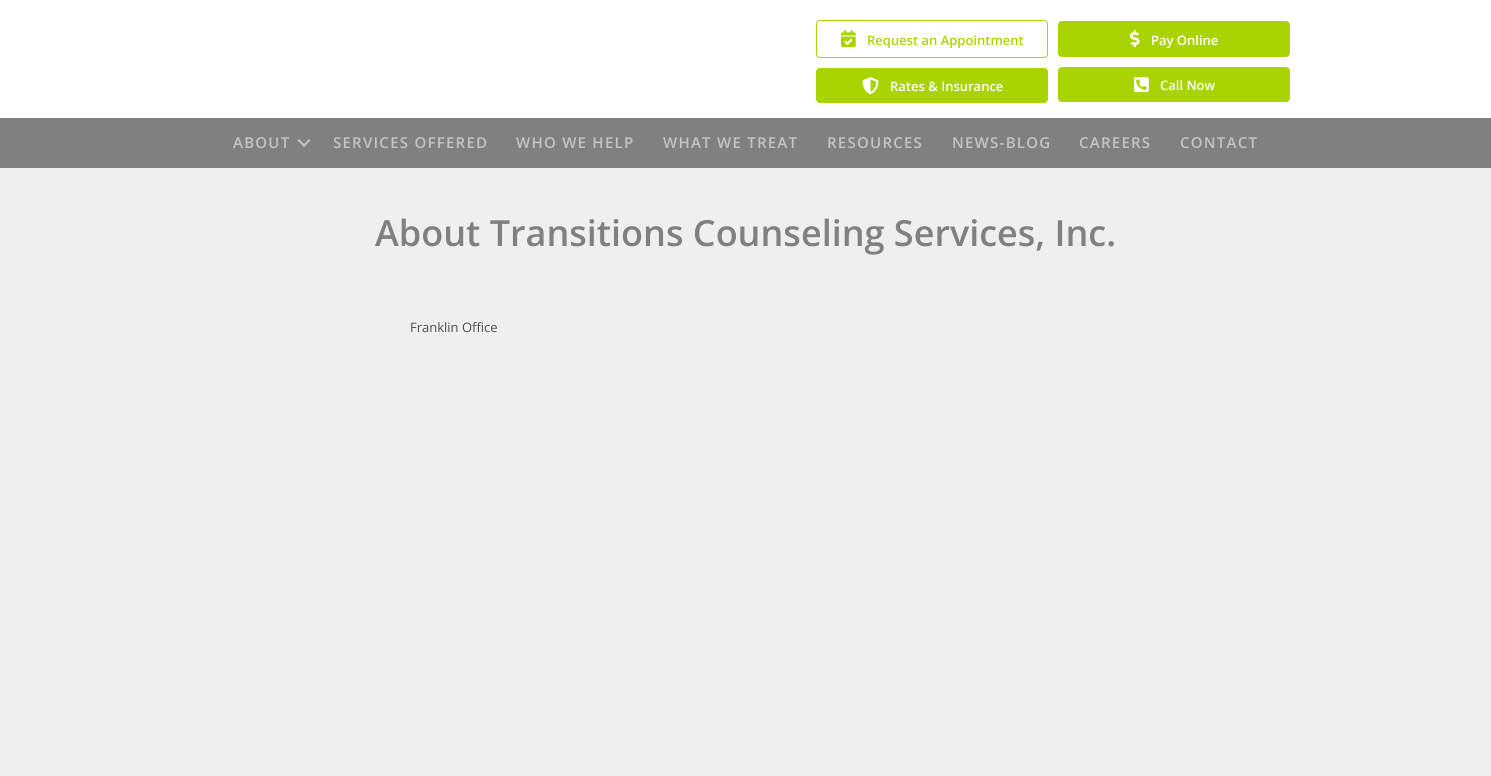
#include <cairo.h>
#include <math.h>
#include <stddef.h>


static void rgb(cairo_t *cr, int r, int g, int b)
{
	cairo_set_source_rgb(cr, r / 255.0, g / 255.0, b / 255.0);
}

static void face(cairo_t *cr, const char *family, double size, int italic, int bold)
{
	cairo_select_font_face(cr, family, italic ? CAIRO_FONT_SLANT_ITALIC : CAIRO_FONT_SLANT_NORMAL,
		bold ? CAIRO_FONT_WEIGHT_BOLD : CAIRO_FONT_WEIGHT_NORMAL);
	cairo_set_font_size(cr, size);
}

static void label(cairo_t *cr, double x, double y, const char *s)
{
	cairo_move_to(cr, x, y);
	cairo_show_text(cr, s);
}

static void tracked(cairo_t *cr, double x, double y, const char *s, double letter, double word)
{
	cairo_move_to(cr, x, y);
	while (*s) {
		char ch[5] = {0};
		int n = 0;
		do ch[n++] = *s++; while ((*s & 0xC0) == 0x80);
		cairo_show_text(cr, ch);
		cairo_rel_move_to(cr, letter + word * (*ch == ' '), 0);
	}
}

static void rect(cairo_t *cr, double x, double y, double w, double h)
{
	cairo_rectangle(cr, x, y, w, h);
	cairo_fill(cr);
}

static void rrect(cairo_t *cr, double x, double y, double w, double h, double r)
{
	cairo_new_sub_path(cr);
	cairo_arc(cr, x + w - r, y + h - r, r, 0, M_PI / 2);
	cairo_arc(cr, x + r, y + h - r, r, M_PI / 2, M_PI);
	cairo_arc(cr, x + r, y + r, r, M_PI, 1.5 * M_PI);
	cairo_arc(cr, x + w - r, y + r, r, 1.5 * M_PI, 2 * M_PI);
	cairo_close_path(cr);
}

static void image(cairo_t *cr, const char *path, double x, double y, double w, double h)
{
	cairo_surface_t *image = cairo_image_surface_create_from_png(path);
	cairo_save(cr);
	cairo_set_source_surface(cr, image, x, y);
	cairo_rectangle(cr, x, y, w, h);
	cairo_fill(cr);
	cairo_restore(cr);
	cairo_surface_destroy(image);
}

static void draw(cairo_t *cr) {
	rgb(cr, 239, 239, 239);
	cairo_paint(cr);
	rgb(cr, 255, 255, 255);
	rect(cr, 0, 0, 1491, 118);
	rrect(cr, 816.5, 20.5, 231, 37, 3.5);
	rgb(cr, 170, 212, 1);
	cairo_set_line_width(cr, 1);
	cairo_stroke(cr);
	image(cr, "image0.png", 841, 30, 15, 18);
	face(cr, "Open Sans SemiBold", 13, 0, 0);
	label(cr, 867, 45, "Request an Appointment");
	rrect(cr, 816, 68, 232, 35, 4);
	cairo_fill(cr);
	image(cr, "image1.png", 862, 77, 17, 18);
	rgb(cr, 255, 255, 255);
	label(cr, 890, 91, "Rates & Insurance");
	rgb(cr, 170, 212, 1);
	rrect(cr, 1058, 21, 232, 36, 4);
	cairo_fill(cr);
	image(cr, "image2.png", 1130, 30, 10, 18);
	rgb(cr, 255, 255, 255);
	label(cr, 1151, 45, "Pay Online");
	rgb(cr, 170, 212, 1);
	rrect(cr, 1058, 67, 232, 35, 4);
	cairo_fill(cr);
	image(cr, "image3.png", 1134, 77, 15, 16);
	rgb(cr, 255, 255, 255);
	label(cr, 1160, 90, "Call Now");
	rgb(cr, 128, 128, 128);
	rect(cr, 0, 118, 1491, 50);
	face(cr, "Open Sans SemiBold", 15, 0, 0);
	rgb(cr, 196, 196, 196);
	tracked(cr, 233, 148, "ABOUT", 1.25, 0);
	cairo_new_path(cr);
	cairo_move_to(cr, 309, 139);
	cairo_line_to(cr, 310.5, 140.5);
	cairo_line_to(cr, 304, 147);
	cairo_line_to(cr, 302.5, 145.5);
	cairo_close_path(cr);
	cairo_fill(cr);
	cairo_new_path(cr);
	cairo_move_to(cr, 299, 139);
	cairo_line_to(cr, 305.5, 145.5);
	cairo_line_to(cr, 304, 147);
	cairo_line_to(cr, 297.5, 140.5);
	cairo_close_path(cr);
	cairo_fill(cr);
	tracked(cr, 333, 148, "SERVICES OFFERED", 1.25, 0);
	tracked(cr, 516, 148, "WHO WE HELP", 1.25, 0);
	tracked(cr, 663, 148, "WHAT WE TREAT", 1.25, 0);
	tracked(cr, 827, 148, "RESOURCES", 1.25, 0);
	tracked(cr, 952, 148, "NEWS-BLOG", 1.25, 0);
	tracked(cr, 1079, 148, "CAREERS", 1.25, 0);
	tracked(cr, 1180, 148, "CONTACT", 1.25, 0);
	face(cr, "Open Sans SemiBold", 36, 0, 0);
	rgb(cr, 128, 128, 128);
	label(cr, 375, 246, "About Transitions Counseling Services, Inc.");
	face(cr, "Open Sans", 13, 0, 0);
	rgb(cr, 76, 76, 76);
	label(cr, 410, 332, "Franklin Office");
}

int main(void) {
	cairo_surface_t *surface = cairo_image_surface_create(CAIRO_FORMAT_RGB24, 1491, 776);
	cairo_t *cr = cairo_create(surface);
	cairo_font_options_t *options = cairo_font_options_create();
	cairo_font_options_set_hint_metrics(options, CAIRO_HINT_METRICS_OFF);
	cairo_font_options_set_hint_style(options, CAIRO_HINT_STYLE_NONE);
	cairo_set_font_options(cr, options);
	cairo_set_miter_limit(cr, 4);
	draw(cr);
	cairo_surface_write_to_png(surface, "render.png");
	cairo_font_options_destroy(options);
	cairo_destroy(cr);
	cairo_surface_destroy(surface);
	return 0;
}
